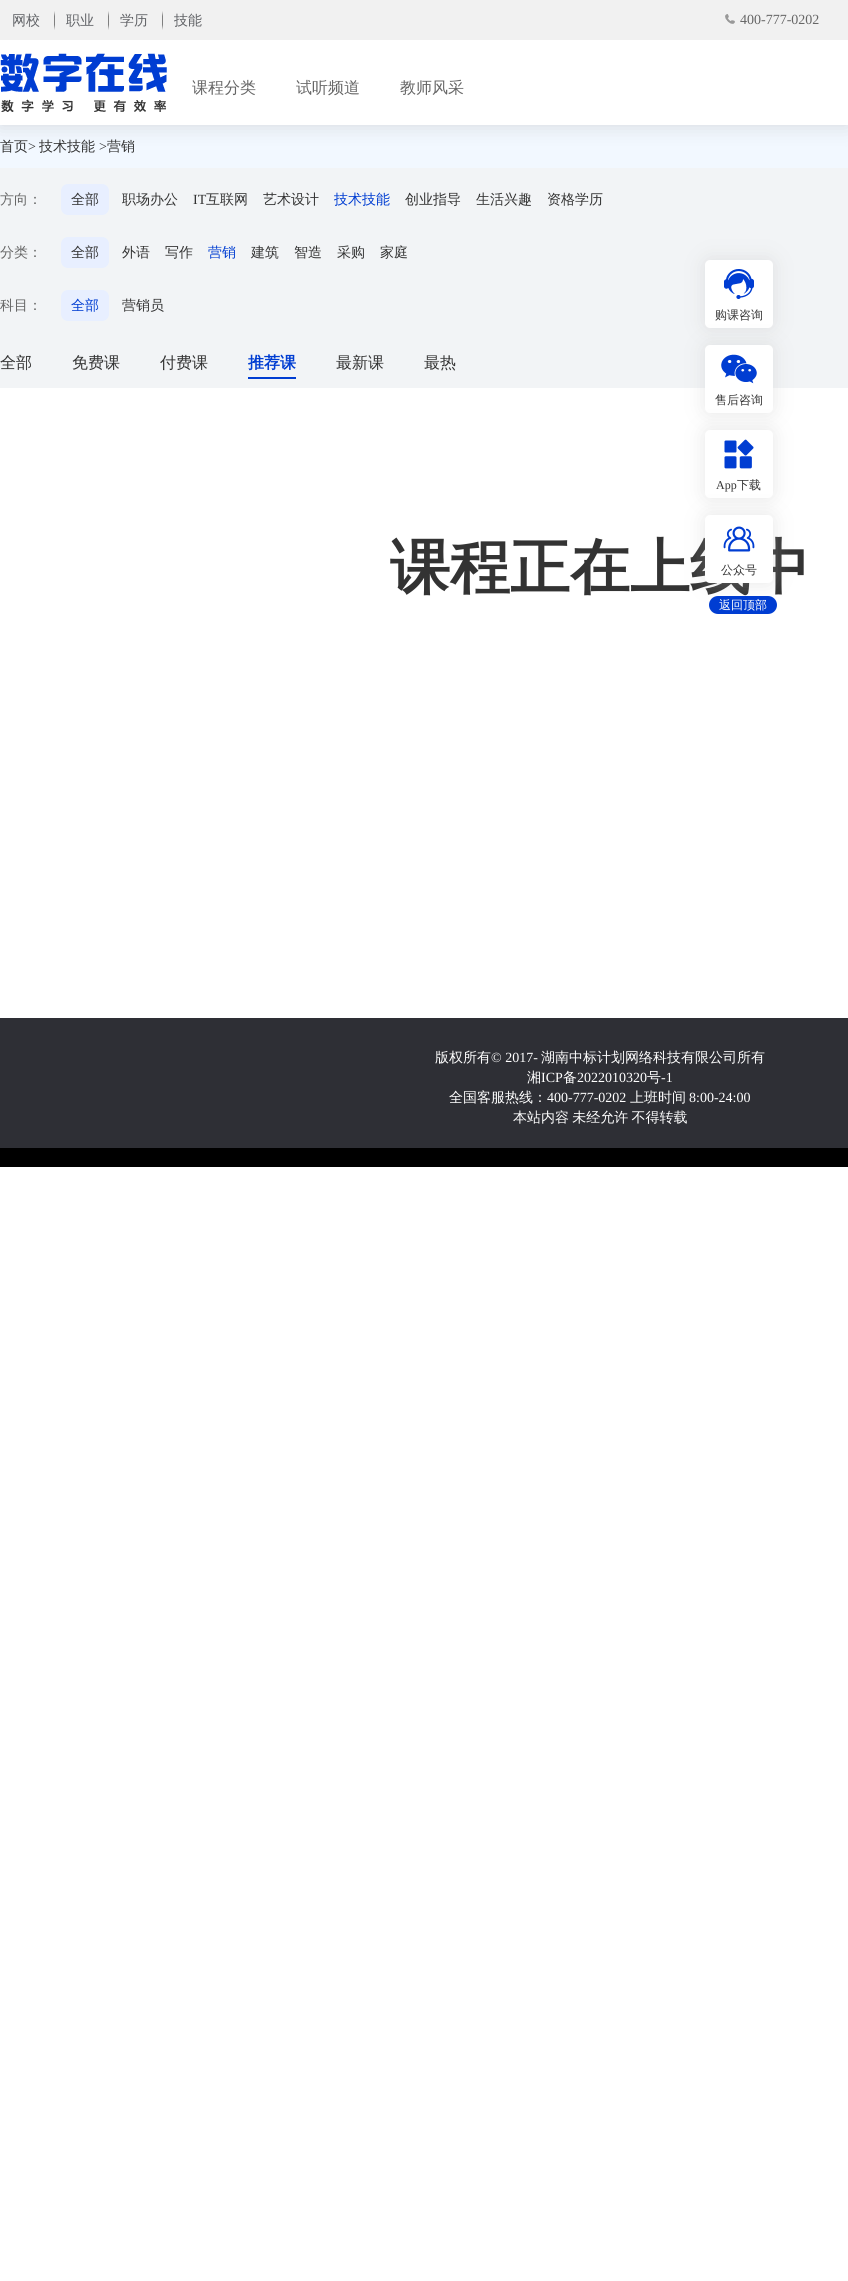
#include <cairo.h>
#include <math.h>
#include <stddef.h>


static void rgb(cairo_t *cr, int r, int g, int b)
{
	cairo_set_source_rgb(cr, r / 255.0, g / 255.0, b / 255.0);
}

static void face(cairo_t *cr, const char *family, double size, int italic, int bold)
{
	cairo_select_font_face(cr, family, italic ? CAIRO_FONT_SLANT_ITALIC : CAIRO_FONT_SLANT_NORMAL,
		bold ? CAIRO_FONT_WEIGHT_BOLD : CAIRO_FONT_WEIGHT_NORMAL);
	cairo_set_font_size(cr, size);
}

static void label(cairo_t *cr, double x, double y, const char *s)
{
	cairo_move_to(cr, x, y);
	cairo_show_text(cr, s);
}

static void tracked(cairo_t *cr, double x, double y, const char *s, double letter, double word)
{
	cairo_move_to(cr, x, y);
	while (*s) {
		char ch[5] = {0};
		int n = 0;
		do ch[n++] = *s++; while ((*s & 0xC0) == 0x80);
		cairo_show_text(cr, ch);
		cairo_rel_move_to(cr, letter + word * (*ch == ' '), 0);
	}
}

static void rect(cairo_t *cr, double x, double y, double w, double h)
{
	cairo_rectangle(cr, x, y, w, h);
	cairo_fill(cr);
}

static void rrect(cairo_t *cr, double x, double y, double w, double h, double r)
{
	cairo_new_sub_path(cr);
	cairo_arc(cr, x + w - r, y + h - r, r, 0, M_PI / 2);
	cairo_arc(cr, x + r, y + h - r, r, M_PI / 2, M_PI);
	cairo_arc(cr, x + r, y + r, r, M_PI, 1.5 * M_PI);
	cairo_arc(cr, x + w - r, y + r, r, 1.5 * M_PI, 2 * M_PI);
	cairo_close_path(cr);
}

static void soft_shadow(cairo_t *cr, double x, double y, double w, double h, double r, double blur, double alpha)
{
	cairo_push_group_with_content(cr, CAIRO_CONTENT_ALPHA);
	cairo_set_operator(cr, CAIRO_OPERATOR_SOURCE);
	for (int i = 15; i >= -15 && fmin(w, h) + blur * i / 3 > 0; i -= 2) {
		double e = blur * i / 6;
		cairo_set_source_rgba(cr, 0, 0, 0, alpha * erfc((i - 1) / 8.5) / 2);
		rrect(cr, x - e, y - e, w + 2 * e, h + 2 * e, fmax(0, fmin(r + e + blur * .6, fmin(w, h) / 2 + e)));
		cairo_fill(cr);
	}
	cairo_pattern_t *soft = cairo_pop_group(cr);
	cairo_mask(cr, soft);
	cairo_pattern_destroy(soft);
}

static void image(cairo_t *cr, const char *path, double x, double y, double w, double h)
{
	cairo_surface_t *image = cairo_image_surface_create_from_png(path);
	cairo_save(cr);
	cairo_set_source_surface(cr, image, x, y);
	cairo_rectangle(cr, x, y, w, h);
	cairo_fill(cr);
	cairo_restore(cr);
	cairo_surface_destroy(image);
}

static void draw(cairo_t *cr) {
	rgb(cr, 255, 255, 255);
	cairo_paint(cr);
	rgb(cr, 242, 248, 255);
	rect(cr, 0, 125, 848, 43);
	rgb(cr, 168, 168, 168);
	soft_shadow(cr, 0, 0, 848, 125, 0, 10, 0.42);
	rgb(cr, 241, 241, 241);
	rect(cr, 0, 0, 848, 40);
	face(cr, "WenQuanYi Zen Hei Medium", 14, 0, 0);
	rgb(cr, 96, 98, 102);
	label(cr, 12, 25, "网校");
	image(cr, "image0.png", 54, 11, 1, 19);
	label(cr, 66, 25, "职业");
	image(cr, "image0.png", 108, 11, 1, 19);
	label(cr, 120, 25, "学历");
	image(cr, "image0.png", 162, 11, 1, 19);
	label(cr, 174, 25, "技能");
	image(cr, "image1.png", 725, 14, 10, 10);
	face(cr, "Liberation Serif", 14, 0, 0);
	rgb(cr, 102, 102, 102);
	label(cr, 740, 24, "400-777-0202");
	rgb(cr, 255, 255, 255);
	rect(cr, 0, 40, 848, 85);
	image(cr, "image2.png", 0, 53, 167, 59);
	face(cr, "WenQuanYi Zen Hei Medium", 16, 0, 0);
	rgb(cr, 102, 102, 102);
	label(cr, 192, 93, "课程分类");
	label(cr, 296, 93, "试听频道");
	label(cr, 400, 93, "教师风采");
	rgb(cr, 242, 244, 246);
	rect(cr, 0, 168, 848, 220);
	face(cr, "WenQuanYi Zen Hei Medium", 14, 0, 0);
	rgb(cr, 51, 51, 51);
	label(cr, 0, 151, "首页");
	face(cr, "Liberation Serif", 14, 0, 0);
	label(cr, 28, 151, ">");
	face(cr, "WenQuanYi Zen Hei Medium", 14, 0, 0);
	label(cr, 39, 151, "技术技能");
	face(cr, "Liberation Serif", 14, 0, 0);
	label(cr, 99, 151, ">");
	face(cr, "WenQuanYi Zen Hei Medium", 14, 0, 0);
	label(cr, 107, 151, "营销");
	rgb(cr, 102, 102, 102);
	label(cr, 0, 204, "方向：");
	rgb(cr, 232, 239, 255);
	rrect(cr, 61, 184, 48, 31, 7);
	cairo_fill(cr);
	rgb(cr, 51, 51, 51);
	label(cr, 71, 204, "全部");
	label(cr, 122, 204, "职场办公");
	face(cr, "Liberation Serif", 14, 0, 0);
	label(cr, 193, 204, "IT");
	face(cr, "WenQuanYi Zen Hei Medium", 14, 0, 0);
	label(cr, 206, 204, "互联网");
	label(cr, 263, 204, "艺术设计");
	rgb(cr, 0, 61, 210);
	label(cr, 334, 204, "技术技能");
	rgb(cr, 51, 51, 51);
	label(cr, 405, 204, "创业指导");
	label(cr, 476, 204, "生活兴趣");
	label(cr, 547, 204, "资格学历");
	rgb(cr, 102, 102, 102);
	label(cr, 0, 257, "分类：");
	rgb(cr, 232, 239, 255);
	rrect(cr, 61, 237, 48, 31, 7);
	cairo_fill(cr);
	rgb(cr, 51, 51, 51);
	label(cr, 71, 257, "全部");
	label(cr, 122, 257, "外语");
	label(cr, 165, 257, "写作");
	rgb(cr, 0, 61, 210);
	label(cr, 208, 257, "营销");
	rgb(cr, 51, 51, 51);
	label(cr, 251, 257, "建筑");
	label(cr, 294, 257, "智造");
	label(cr, 337, 257, "采购");
	label(cr, 380, 257, "家庭");
	rgb(cr, 102, 102, 102);
	label(cr, 0, 310, "科目：");
	rgb(cr, 232, 239, 255);
	rrect(cr, 61, 290, 48, 31, 7);
	cairo_fill(cr);
	rgb(cr, 0, 61, 210);
	label(cr, 71, 310, "全部");
	rgb(cr, 51, 51, 51);
	label(cr, 122, 310, "营销员");
	face(cr, "WenQuanYi Zen Hei Medium", 16, 0, 0);
	label(cr, 0, 368, "全部");
	label(cr, 72, 368, "免费课");
	label(cr, 160, 368, "付费课");
	face(cr, "WenQuanYi Zen Hei", 16, 0, 1);
	rgb(cr, 0, 61, 210);
	label(cr, 248, 368, "推荐课");
	rect(cr, 248, 377, 48, 2);
	face(cr, "WenQuanYi Zen Hei Medium", 16, 0, 0);
	rgb(cr, 51, 51, 51);
	label(cr, 336, 368, "最新课");
	label(cr, 424, 368, "最热");
	face(cr, "WenQuanYi Zen Hei", 60, 0, 1);
	label(cr, 390, 588, "课程正在上线中");
	rgb(cr, 188, 188, 188);
	soft_shadow(cr, 705, 260, 68, 68, 5, 10, 0.35);
	rgb(cr, 255, 255, 255);
	rrect(cr, 705, 260, 68, 68, 5);
	cairo_fill(cr);
	image(cr, "image3.png", 724, 269, 30, 30);
	face(cr, "WenQuanYi Zen Hei Medium", 12, 0, 0);
	rgb(cr, 51, 51, 51);
	label(cr, 715, 319, "购课咨询");
	rgb(cr, 188, 188, 188);
	soft_shadow(cr, 705, 345, 68, 68, 5, 10, 0.35);
	rgb(cr, 255, 255, 255);
	rrect(cr, 705, 345, 68, 68, 5);
	cairo_fill(cr);
	image(cr, "image4.png", 721, 354, 36, 30);
	rgb(cr, 51, 51, 51);
	label(cr, 715, 404, "售后咨询");
	rgb(cr, 188, 188, 188);
	soft_shadow(cr, 705, 430, 68, 68, 5, 10, 0.35);
	rgb(cr, 255, 255, 255);
	rrect(cr, 705, 430, 68, 68, 5);
	cairo_fill(cr);
	image(cr, "image5.png", 724, 439, 30, 30);
	face(cr, "Liberation Serif", 12, 0, 0);
	rgb(cr, 51, 51, 51);
	label(cr, 716, 489, "App");
	face(cr, "WenQuanYi Zen Hei Medium", 12, 0, 0);
	label(cr, 737, 489, "下载");
	rgb(cr, 188, 188, 188);
	soft_shadow(cr, 705, 515, 68, 68, 5, 10, 0.35);
	rgb(cr, 255, 255, 255);
	rrect(cr, 705, 515, 68, 68, 5);
	cairo_fill(cr);
	image(cr, "image6.png", 723, 526, 32, 26);
	rgb(cr, 51, 51, 51);
	label(cr, 721, 574, "公众号");
	rgb(cr, 0, 61, 210);
	rrect(cr, 709, 596, 68, 18, 9);
	cairo_fill(cr);
	rgb(cr, 255, 255, 255);
	label(cr, 719, 609, "返回顶部");
	rgb(cr, 0, 0, 0);
	rect(cr, 0, 1148, 848, 19);
	rgb(cr, 46, 47, 53);
	rect(cr, 0, 1018, 848, 130);
	face(cr, "WenQuanYi Zen Hei Medium", 14, 0, 0);
	rgb(cr, 255, 255, 255);
	label(cr, 435, 1062, "版权所有");
	face(cr, "Liberation Serif", 14, 0, 0);
	label(cr, 491, 1062, "© 2017-");
	face(cr, "WenQuanYi Zen Hei Medium", 14, 0, 0);
	label(cr, 541, 1062, "湖南中标计划网络科技有限公司所有");
	label(cr, 527, 1082, "湘");
	face(cr, "Liberation Serif", 14, 0, 0);
	label(cr, 541, 1082, "ICP");
	face(cr, "WenQuanYi Zen Hei Medium", 14, 0, 0);
	label(cr, 563, 1082, "备");
	face(cr, "Liberation Serif", 14, 0, 0);
	label(cr, 577, 1082, "2022010320");
	face(cr, "WenQuanYi Zen Hei Medium", 14, 0, 0);
	label(cr, 647, 1082, "号");
	face(cr, "Liberation Serif", 14, 0, 0);
	label(cr, 661, 1082, "-1");
	face(cr, "WenQuanYi Zen Hei Medium", 14, 0, 0);
	label(cr, 449, 1102, "全国客服热线：");
	face(cr, "Liberation Serif", 14, 0, 0);
	label(cr, 547, 1102, "400-777-0202");
	face(cr, "WenQuanYi Zen Hei Medium", 14, 0, 0);
	label(cr, 630, 1102, "上班时间");
	face(cr, "Liberation Serif", 14, 0, 0);
	label(cr, 689, 1102, "8:00-24:00");
	face(cr, "WenQuanYi Zen Hei Medium", 14, 0, 0);
	tracked(cr, 513, 1122, "本站内容 未经允许 不得转载", 0, -1);
}

int main(void) {
	cairo_surface_t *surface = cairo_image_surface_create(CAIRO_FORMAT_RGB24, 848, 2281);
	cairo_t *cr = cairo_create(surface);
	cairo_font_options_t *options = cairo_font_options_create();
	cairo_font_options_set_hint_metrics(options, CAIRO_HINT_METRICS_OFF);
	cairo_font_options_set_hint_style(options, CAIRO_HINT_STYLE_NONE);
	cairo_set_font_options(cr, options);
	cairo_set_miter_limit(cr, 4);
	draw(cr);
	cairo_surface_write_to_png(surface, "render.png");
	cairo_font_options_destroy(options);
	cairo_destroy(cr);
	cairo_surface_destroy(surface);
	return 0;
}
